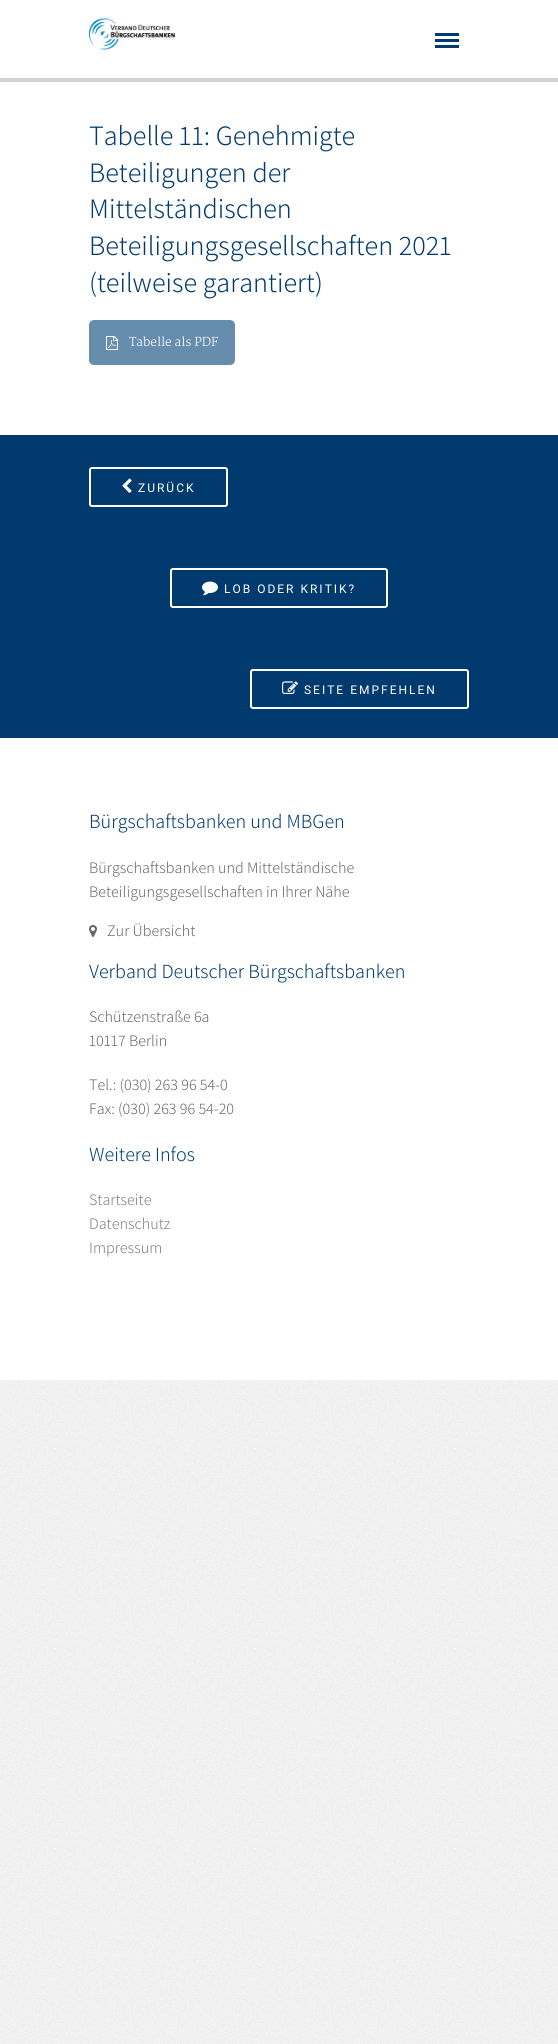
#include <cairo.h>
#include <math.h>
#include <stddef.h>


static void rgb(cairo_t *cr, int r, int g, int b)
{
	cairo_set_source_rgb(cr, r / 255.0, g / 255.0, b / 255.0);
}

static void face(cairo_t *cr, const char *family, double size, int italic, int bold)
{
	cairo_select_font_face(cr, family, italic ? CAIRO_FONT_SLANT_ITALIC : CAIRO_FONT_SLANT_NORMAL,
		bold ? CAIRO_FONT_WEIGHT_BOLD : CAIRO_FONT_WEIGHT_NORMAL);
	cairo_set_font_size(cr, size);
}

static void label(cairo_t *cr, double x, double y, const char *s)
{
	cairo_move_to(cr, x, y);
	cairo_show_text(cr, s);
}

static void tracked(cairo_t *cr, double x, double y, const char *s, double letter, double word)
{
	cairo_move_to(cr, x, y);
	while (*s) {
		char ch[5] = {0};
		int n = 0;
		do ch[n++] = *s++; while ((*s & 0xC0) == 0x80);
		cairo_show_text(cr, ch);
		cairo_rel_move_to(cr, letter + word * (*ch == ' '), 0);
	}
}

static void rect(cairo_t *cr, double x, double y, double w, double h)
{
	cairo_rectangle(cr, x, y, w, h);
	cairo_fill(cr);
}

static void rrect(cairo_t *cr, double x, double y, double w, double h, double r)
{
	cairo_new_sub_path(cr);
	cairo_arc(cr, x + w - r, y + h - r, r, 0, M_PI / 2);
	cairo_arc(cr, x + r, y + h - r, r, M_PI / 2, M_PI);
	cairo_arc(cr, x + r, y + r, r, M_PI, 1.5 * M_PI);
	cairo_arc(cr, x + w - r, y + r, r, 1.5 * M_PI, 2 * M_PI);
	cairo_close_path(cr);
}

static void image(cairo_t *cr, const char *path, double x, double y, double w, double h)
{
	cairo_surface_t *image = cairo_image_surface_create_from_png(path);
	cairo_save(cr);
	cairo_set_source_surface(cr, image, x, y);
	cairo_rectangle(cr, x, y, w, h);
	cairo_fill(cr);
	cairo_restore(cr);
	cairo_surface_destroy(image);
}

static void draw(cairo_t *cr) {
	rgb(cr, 255, 255, 255);
	cairo_paint(cr);
	image(cr, "image0.png", 0, 1380, 558, 664);
	rgb(cr, 210, 210, 210);
	rect(cr, 0, 78, 558, 4);
	image(cr, "image1.png", 89, 18, 86, 32);
	rgb(cr, 0, 58, 111);
	rect(cr, 435, 33, 24, 3);
	rect(cr, 435, 39, 24, 3);
	rect(cr, 435, 45, 24, 3);
	face(cr, "Assistant Light", 28, 0, 0);
	label(cr, 89, 145, "Tabelle 11: Genehmigte");
	label(cr, 89, 182, "Beteiligungen der");
	label(cr, 89, 218, "Mittelständischen");
	label(cr, 89, 255, "Beteiligungsgesellschaften 2021");
	label(cr, 89, 292, "(teilweise garantiert)");
	rgb(cr, 102, 140, 174);
	rrect(cr, 89, 320, 146, 45, 5);
	cairo_fill(cr);
	image(cr, "image2.png", 106, 336, 12, 14);
	face(cr, "Martel Light", 12, 0, 0);
	rgb(cr, 255, 255, 255);
	label(cr, 129, 346, "Tabelle als PDF");
	rgb(cr, 0, 58, 111);
	rect(cr, 0, 435, 558, 303);
	rrect(cr, 90, 468, 137, 38, 2);
	rgb(cr, 255, 255, 255);
	cairo_stroke(cr);
	image(cr, "image3.png", 122, 478, 10, 15);
	face(cr, "Roboto", 12, 0, 0);
	tracked(cr, 138, 492, "ZURÜCK", 2, 0);
	rrect(cr, 171, 569, 216, 38, 2);
	cairo_stroke(cr);
	image(cr, "image4.png", 202, 581, 16, 15);
	tracked(cr, 224, 593, "LOB ODER KRITIK?", 2, 0);
	rrect(cr, 251, 670, 217, 38, 2);
	cairo_stroke(cr);
	image(cr, "image5.png", 282, 681, 16, 13);
	tracked(cr, 304, 694, "SEITE EMPFEHLEN", 2, 0);
	face(cr, "Assistant Light", 20, 0, 0);
	rgb(cr, 0, 58, 111);
	label(cr, 89, 828, "Bürgschaftsbanken und MBGen");
	face(cr, "Assistant Light", 16, 0, 0);
	rgb(cr, 102, 102, 102);
	label(cr, 89, 873, "Bürgschaftsbanken und Mittelständische");
	label(cr, 89, 897, "Beteiligungsgesellschaften in Ihrer Nähe");
	image(cr, "image6.png", 89, 925, 8, 12);
	label(cr, 107, 936, "Zur Übersicht");
	face(cr, "Assistant Light", 20, 0, 0);
	rgb(cr, 0, 58, 111);
	label(cr, 89, 978, "Verband Deutscher Bürgschaftsbanken");
	face(cr, "Assistant Light", 16, 0, 0);
	rgb(cr, 102, 102, 102);
	label(cr, 89, 1022, "Schützenstraße 6a");
	label(cr, 89, 1046, "10117 Berlin");
	label(cr, 89, 1090, "Tel.: (030) 263 96 54-0");
	label(cr, 89, 1114, "Fax: (030) 263 96 54-20");
	face(cr, "Assistant Light", 20, 0, 0);
	rgb(cr, 0, 58, 111);
	label(cr, 89, 1161, "Weitere Infos");
	face(cr, "Assistant Light", 16, 0, 0);
	rgb(cr, 121, 126, 130);
	label(cr, 89, 1205, "Startseite");
	label(cr, 89, 1229, "Datenschutz");
	label(cr, 89, 1253, "Impressum");
}

int main(void) {
	cairo_surface_t *surface = cairo_image_surface_create(CAIRO_FORMAT_RGB24, 558, 2044);
	cairo_t *cr = cairo_create(surface);
	cairo_font_options_t *options = cairo_font_options_create();
	cairo_font_options_set_hint_metrics(options, CAIRO_HINT_METRICS_OFF);
	cairo_font_options_set_hint_style(options, CAIRO_HINT_STYLE_NONE);
	cairo_set_font_options(cr, options);
	cairo_set_miter_limit(cr, 4);
	draw(cr);
	cairo_surface_write_to_png(surface, "render.png");
	cairo_font_options_destroy(options);
	cairo_destroy(cr);
	cairo_surface_destroy(surface);
	return 0;
}
